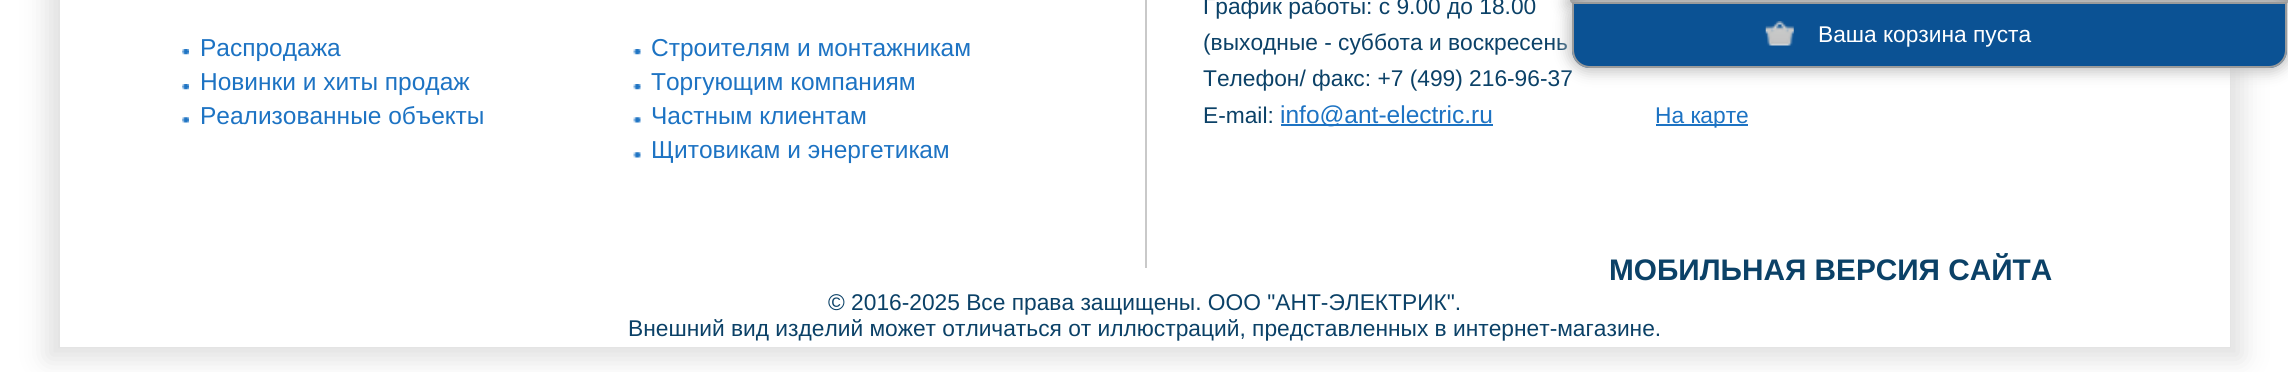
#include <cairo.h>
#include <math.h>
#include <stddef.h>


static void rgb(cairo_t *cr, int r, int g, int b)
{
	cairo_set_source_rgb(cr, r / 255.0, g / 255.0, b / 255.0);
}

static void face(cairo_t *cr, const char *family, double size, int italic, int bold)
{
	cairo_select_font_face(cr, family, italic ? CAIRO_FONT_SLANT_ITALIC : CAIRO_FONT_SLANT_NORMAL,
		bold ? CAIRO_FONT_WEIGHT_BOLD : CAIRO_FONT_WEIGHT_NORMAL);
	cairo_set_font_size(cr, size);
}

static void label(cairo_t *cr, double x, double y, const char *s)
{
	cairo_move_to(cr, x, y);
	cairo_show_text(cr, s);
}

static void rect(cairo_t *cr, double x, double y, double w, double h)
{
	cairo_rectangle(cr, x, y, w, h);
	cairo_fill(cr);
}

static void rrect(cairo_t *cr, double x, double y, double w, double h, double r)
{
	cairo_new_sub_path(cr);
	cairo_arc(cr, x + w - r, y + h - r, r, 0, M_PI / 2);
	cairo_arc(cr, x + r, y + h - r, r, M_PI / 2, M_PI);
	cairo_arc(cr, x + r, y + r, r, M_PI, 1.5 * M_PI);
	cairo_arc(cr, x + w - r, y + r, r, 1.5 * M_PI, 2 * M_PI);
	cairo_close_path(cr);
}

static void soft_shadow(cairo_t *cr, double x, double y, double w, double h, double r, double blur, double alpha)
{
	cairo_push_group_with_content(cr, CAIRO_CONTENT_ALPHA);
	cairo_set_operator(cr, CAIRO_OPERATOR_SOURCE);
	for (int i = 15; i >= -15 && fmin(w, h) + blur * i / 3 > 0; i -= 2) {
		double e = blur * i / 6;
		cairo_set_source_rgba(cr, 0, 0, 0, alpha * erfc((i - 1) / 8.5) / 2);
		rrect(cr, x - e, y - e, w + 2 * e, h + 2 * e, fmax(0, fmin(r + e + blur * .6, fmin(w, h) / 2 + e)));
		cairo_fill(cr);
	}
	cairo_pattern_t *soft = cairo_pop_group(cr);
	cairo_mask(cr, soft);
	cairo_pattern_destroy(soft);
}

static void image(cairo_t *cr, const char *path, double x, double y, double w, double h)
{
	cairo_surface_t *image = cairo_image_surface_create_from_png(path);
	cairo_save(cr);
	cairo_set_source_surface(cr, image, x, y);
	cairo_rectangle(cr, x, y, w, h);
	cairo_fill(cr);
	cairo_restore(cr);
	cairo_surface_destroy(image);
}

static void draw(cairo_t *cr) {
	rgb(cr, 255, 255, 255);
	cairo_paint(cr);
	cairo_save(cr);
	cairo_set_fill_rule(cr, CAIRO_FILL_RULE_EVEN_ODD);
	cairo_new_path(cr);
	cairo_move_to(cr, 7, 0);
	cairo_line_to(cr, 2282, 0);
	cairo_line_to(cr, 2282, 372);
	cairo_line_to(cr, 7, 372);
	cairo_close_path(cr);
	cairo_move_to(cr, 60, -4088);
	cairo_line_to(cr, 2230, -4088);
	cairo_line_to(cr, 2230, 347);
	cairo_line_to(cr, 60, 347);
	cairo_close_path(cr);
	cairo_clip(cr);
	rgb(cr, 223, 223, 223);
	soft_shadow(cr, 47, -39, 2195, 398, 0, 13, 1);
	cairo_restore(cr);
	image(cr, "image0.png", 182, 49, 7, 6);
	face(cr, "Liberation Sans", 24.5, 0, 0);
	rgb(cr, 29, 115, 195);
	label(cr, 200, 56, "Распродажа");
	image(cr, "image0.png", 182, 84, 7, 6);
	label(cr, 200, 90, "Новинки и хиты продаж");
	image(cr, "image1.png", 182, 117, 7, 6);
	label(cr, 200, 124, "Реализованные объекты");
	rgb(cr, 201, 201, 201);
	rect(cr, 1145, 0, 2, 268);
	image(cr, "image2.png", 633, 49, 8, 6);
	rgb(cr, 29, 115, 195);
	label(cr, 651, 56, "Строителям и монтажникам");
	image(cr, "image2.png", 633, 84, 8, 6);
	label(cr, 651, 90, "Торгующим компаниям");
	image(cr, "image3.png", 633, 117, 8, 6);
	label(cr, 651, 124, "Частным клиентам");
	image(cr, "image3.png", 633, 152, 8, 6);
	label(cr, 651, 158, "Щитовикам и энергетикам");
	face(cr, "Liberation Sans", 22.75, 0, 0);
	rgb(cr, 11, 65, 103);
	label(cr, 1203, 14, "График работы: с 9.00 до 18.00");
	label(cr, 1203, 50, "(выходные - суббота и воскресень");
	label(cr, 1203, 86, "Телефон/ факс: +7 (499) 216-96-37");
	label(cr, 1203, 123, "E-mail:");
	rgb(cr, 29, 115, 195);
	rect(cr, 1281, 124, 212, 2);
	face(cr, "Liberation Sans", 24.5, 0, 0);
	label(cr, 1280, 123, "info@ant-electric.ru");
	rect(cr, 1656, 124, 92, 2);
	face(cr, "Liberation Sans", 22.75, 0, 0);
	label(cr, 1655, 123, "На карте");
	face(cr, "Liberation Sans", 29.75, 0, 1);
	rgb(cr, 11, 65, 103);
	label(cr, 1609, 280, "МОБИЛЬНАЯ ВЕРСИЯ САЙТА");
	face(cr, "Liberation Sans", 22.75, 0, 0);
	label(cr, 828, 310, "© 2016-2025 Все права защищены. ООО \"АНТ-ЭЛЕКТРИК\".");
	label(cr, 628, 336, "Внешний вид изделий может отличаться от иллюстраций, представленных в интернет-магазине.");
	rgb(cr, 195, 195, 195);
	soft_shadow(cr, 1566, -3, 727, 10, 7, 7, 1);
	rgb(cr, 155, 155, 155);
	cairo_new_path(cr);
	cairo_move_to(cr, 1570, 0);
	cairo_line_to(cr, 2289, 0);
	cairo_curve_to(cr, 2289, 2, 2287, 4, 2285, 4);
	cairo_line_to(cr, 1574, 4);
	cairo_curve_to(cr, 1572, 4, 1570, 2, 1570, 0);
	cairo_close_path(cr);
	cairo_fill(cr);
	cairo_save(cr);
	cairo_set_fill_rule(cr, CAIRO_FILL_RULE_EVEN_ODD);
	cairo_new_path(cr);
	cairo_move_to(cr, 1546, 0);
	cairo_line_to(cr, 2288, 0);
	cairo_line_to(cr, 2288, 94);
	cairo_line_to(cr, 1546, 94);
	cairo_close_path(cr);
	cairo_move_to(cr, 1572, 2);
	cairo_line_to(cr, 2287, 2);
	cairo_line_to(cr, 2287, 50);
	cairo_curve_to(cr, 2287, 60, 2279, 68, 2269, 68);
	cairo_line_to(cr, 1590, 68);
	cairo_curve_to(cr, 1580, 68, 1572, 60, 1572, 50);
	cairo_close_path(cr);
	cairo_clip(cr);
	rgb(cr, 195, 195, 195);
	soft_shadow(cr, 1568, -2, 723, 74, 21, 7, 1);
	cairo_restore(cr);
	rgb(cr, 11, 82, 148);
	cairo_new_path(cr);
	cairo_move_to(cr, 1572, 2);
	cairo_line_to(cr, 2287, 2);
	cairo_line_to(cr, 2287, 50);
	cairo_curve_to(cr, 2287, 60, 2279, 68, 2269, 68);
	cairo_line_to(cr, 1590, 68);
	cairo_curve_to(cr, 1580, 68, 1572, 60, 1572, 50);
	cairo_close_path(cr);
	cairo_fill(cr);
	image(cr, "image4.png", 1765, 21, 29, 25);
	cairo_new_path(cr);
	cairo_move_to(cr, 1573, 3);
	cairo_line_to(cr, 2286, 3);
	cairo_line_to(cr, 2286, 50);
	cairo_curve_to(cr, 2286, 59.5, 2278.5, 67, 2269, 67);
	cairo_line_to(cr, 1590, 67);
	cairo_curve_to(cr, 1580.5, 67, 1573, 59.5, 1573, 50);
	cairo_close_path(cr);
	rgb(cr, 155, 155, 155);
	cairo_stroke(cr);
	rgb(cr, 255, 255, 255);
	label(cr, 1818, 42, "Ваша корзина пуста");
}

int main(void) {
	cairo_surface_t *surface = cairo_image_surface_create(CAIRO_FORMAT_RGB24, 2288, 372);
	cairo_t *cr = cairo_create(surface);
	cairo_font_options_t *options = cairo_font_options_create();
	cairo_font_options_set_hint_metrics(options, CAIRO_HINT_METRICS_OFF);
	cairo_font_options_set_hint_style(options, CAIRO_HINT_STYLE_NONE);
	cairo_set_font_options(cr, options);
	cairo_set_miter_limit(cr, 4);
	draw(cr);
	cairo_surface_write_to_png(surface, "render.png");
	cairo_font_options_destroy(options);
	cairo_destroy(cr);
	cairo_surface_destroy(surface);
	return 0;
}
